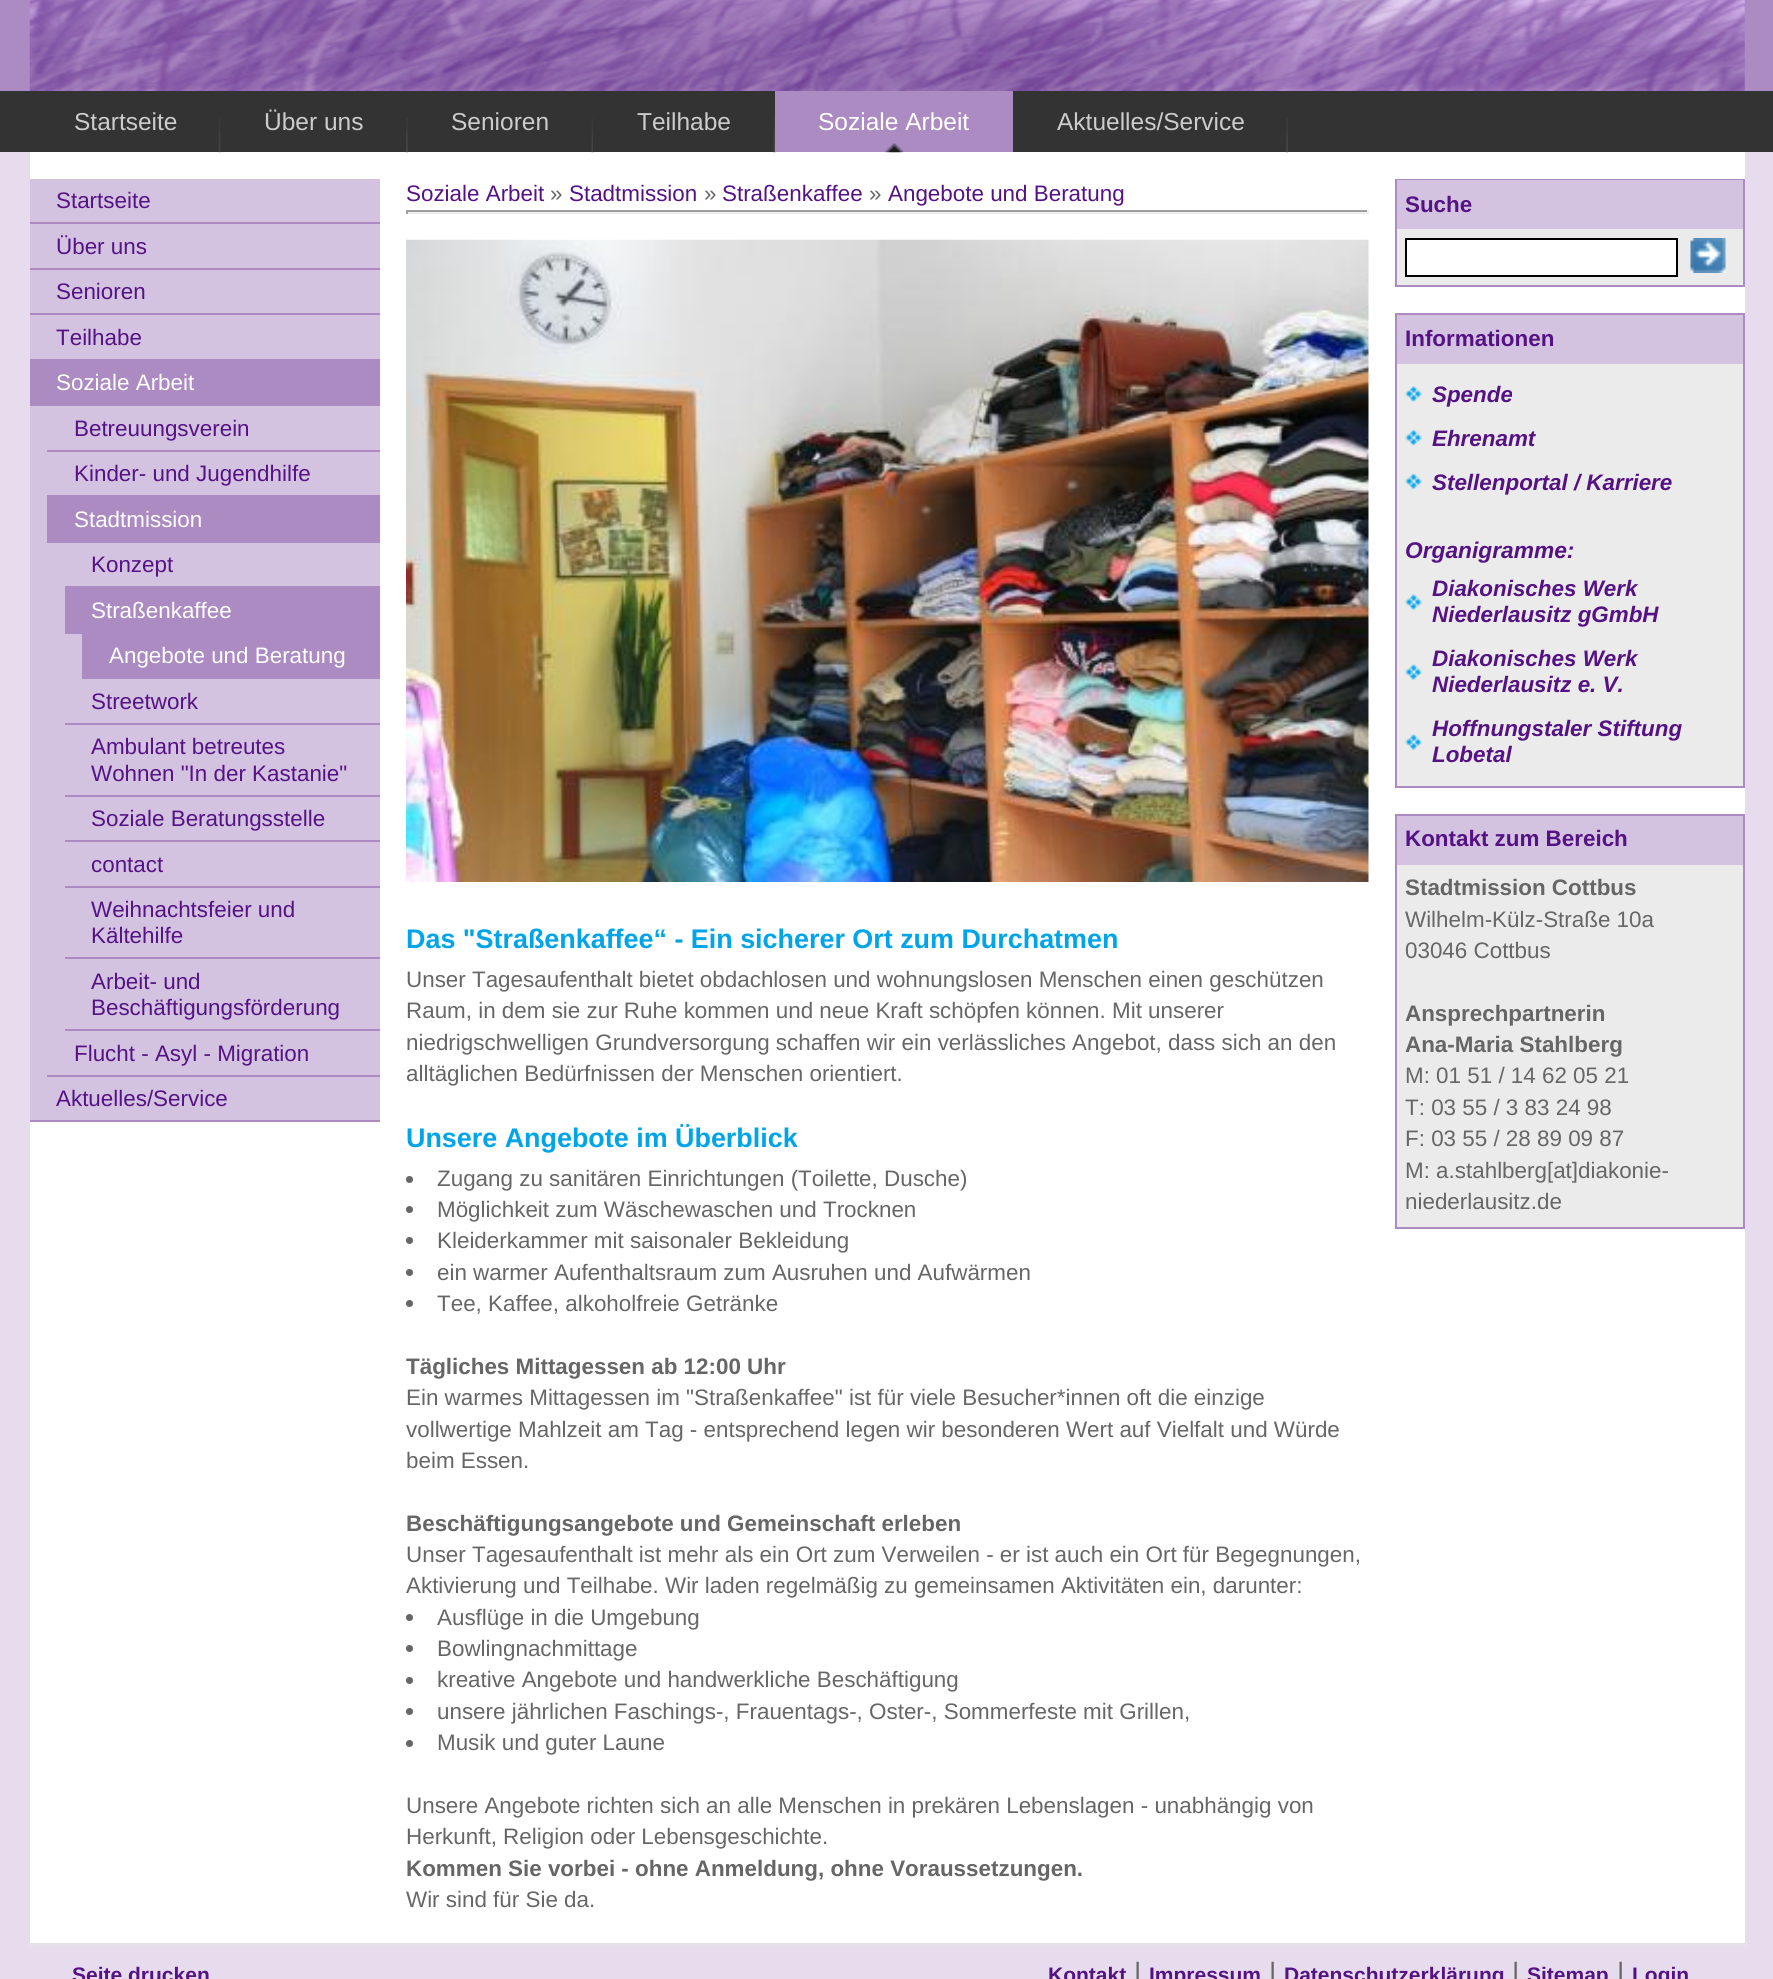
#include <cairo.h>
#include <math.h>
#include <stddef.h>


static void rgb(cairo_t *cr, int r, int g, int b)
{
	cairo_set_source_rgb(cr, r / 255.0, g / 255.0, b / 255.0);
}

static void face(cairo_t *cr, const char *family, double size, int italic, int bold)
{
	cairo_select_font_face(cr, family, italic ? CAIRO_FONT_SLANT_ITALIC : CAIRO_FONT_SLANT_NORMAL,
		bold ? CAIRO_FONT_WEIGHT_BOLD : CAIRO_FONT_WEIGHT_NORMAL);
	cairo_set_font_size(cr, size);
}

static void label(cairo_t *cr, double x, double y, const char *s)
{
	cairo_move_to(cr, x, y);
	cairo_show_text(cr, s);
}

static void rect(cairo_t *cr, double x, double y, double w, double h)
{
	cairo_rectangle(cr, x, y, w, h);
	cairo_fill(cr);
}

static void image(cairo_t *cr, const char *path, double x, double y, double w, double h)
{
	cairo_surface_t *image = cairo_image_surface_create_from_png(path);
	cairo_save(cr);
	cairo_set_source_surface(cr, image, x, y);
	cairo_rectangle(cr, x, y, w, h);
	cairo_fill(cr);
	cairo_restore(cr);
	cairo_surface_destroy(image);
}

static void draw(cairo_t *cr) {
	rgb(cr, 231, 220, 237);
	cairo_paint(cr);
	rgb(cr, 172, 139, 194);
	rect(cr, 0, 0, 1773, 91);
	image(cr, "image0.png", 29, 0, 1716, 91);
	rgb(cr, 51, 51, 51);
	rect(cr, 0, 91, 1773, 61);
	rgb(cr, 255, 255, 255);
	rect(cr, 30, 152, 1715, 1791);
	image(cr, "image1.png", 218, 118, 3, 35);
	face(cr, "Liberation Sans", 24.5, 0, 0);
	rgb(cr, 204, 204, 204);
	label(cr, 74, 130, "Startseite");
	image(cr, "image2.png", 406, 118, 2, 35);
	label(cr, 264, 130, "Über uns");
	image(cr, "image3.png", 591, 118, 3, 35);
	label(cr, 451, 130, "Senioren");
	rgb(cr, 51, 51, 51);
	rect(cr, 593, 136, 1, 16);
	image(cr, "image3.png", 773, 118, 3, 35);
	rgb(cr, 204, 204, 204);
	label(cr, 637, 130, "Teilhabe");
	rgb(cr, 172, 139, 194);
	rect(cr, 775, 91, 238, 61);
	image(cr, "image4.png", 885, 143, 18, 10);
	rgb(cr, 255, 255, 255);
	label(cr, 818, 130, "Soziale Arbeit");
	image(cr, "image5.png", 1286, 118, 2, 35);
	rgb(cr, 204, 204, 204);
	label(cr, 1057, 130, "Aktuelles/Service");
	rgb(cr, 211, 195, 224);
	rect(cr, 30, 179, 350, 941);
	rgb(cr, 172, 139, 194);
	rect(cr, 30, 222, 350, 2);
	face(cr, "Liberation Sans", 22.4, 0, 0);
	rgb(cr, 85, 18, 133);
	label(cr, 56, 208, "Startseite");
	rgb(cr, 172, 139, 194);
	rect(cr, 30, 268, 350, 2);
	rgb(cr, 85, 18, 133);
	label(cr, 56, 254, "Über uns");
	rgb(cr, 172, 139, 194);
	rect(cr, 30, 313, 350, 2);
	rgb(cr, 85, 18, 133);
	label(cr, 56, 299, "Senioren");
	rgb(cr, 172, 139, 194);
	rect(cr, 30, 359, 350, 47);
	rgb(cr, 85, 18, 133);
	label(cr, 56, 345, "Teilhabe");
	rgb(cr, 255, 255, 255);
	label(cr, 56, 390, "Soziale Arbeit");
	rgb(cr, 172, 139, 194);
	rect(cr, 47, 450, 333, 2);
	rgb(cr, 85, 18, 133);
	label(cr, 74, 436, "Betreuungsverein");
	rgb(cr, 172, 139, 194);
	rect(cr, 47, 495, 333, 48);
	rgb(cr, 85, 18, 133);
	label(cr, 74, 481, "Kinder- und Jugendhilfe");
	rgb(cr, 255, 255, 255);
	label(cr, 74, 527, "Stadtmission");
	rgb(cr, 172, 139, 194);
	rect(cr, 65, 586, 315, 48);
	rgb(cr, 85, 18, 133);
	label(cr, 91, 572, "Konzept");
	rgb(cr, 255, 255, 255);
	label(cr, 91, 618, "Straßenkaffee");
	rgb(cr, 172, 139, 194);
	rect(cr, 82, 634, 298, 45);
	rgb(cr, 255, 255, 255);
	label(cr, 109, 663, "Angebote und Beratung");
	rgb(cr, 172, 139, 194);
	rect(cr, 65, 723, 315, 2);
	rgb(cr, 85, 18, 133);
	label(cr, 91, 709, "Streetwork");
	rgb(cr, 172, 139, 194);
	rect(cr, 65, 795, 315, 2);
	rgb(cr, 85, 18, 133);
	label(cr, 91, 754, "Ambulant betreutes");
	label(cr, 91, 781, "Wohnen \"In der Kastanie\"");
	rgb(cr, 172, 139, 194);
	rect(cr, 65, 840, 315, 2);
	rgb(cr, 85, 18, 133);
	label(cr, 91, 826, "Soziale Beratungsstelle");
	rgb(cr, 172, 139, 194);
	rect(cr, 65, 886, 315, 2);
	rgb(cr, 85, 18, 133);
	label(cr, 91, 872, "contact");
	rgb(cr, 172, 139, 194);
	rect(cr, 65, 957, 315, 2);
	rgb(cr, 85, 18, 133);
	label(cr, 91, 917, "Weihnachtsfeier und");
	label(cr, 91, 943, "Kältehilfe");
	rgb(cr, 172, 139, 194);
	rect(cr, 65, 1029, 315, 2);
	rgb(cr, 85, 18, 133);
	label(cr, 91, 989, "Arbeit- und");
	label(cr, 91, 1015, "Beschäftigungsförderung");
	rgb(cr, 172, 139, 194);
	rect(cr, 47, 1075, 333, 2);
	rgb(cr, 85, 18, 133);
	label(cr, 74, 1061, "Flucht - Asyl - Migration");
	rgb(cr, 172, 139, 194);
	rect(cr, 30, 1120, 350, 2);
	rgb(cr, 85, 18, 133);
	label(cr, 56, 1106, "Aktuelles/Service");
	label(cr, 406, 201, "Soziale Arbeit");
	rgb(cr, 102, 102, 102);
	label(cr, 550, 201, "»");
	rgb(cr, 85, 18, 133);
	label(cr, 569, 201, "Stadtmission");
	rgb(cr, 102, 102, 102);
	label(cr, 704, 201, "»");
	rgb(cr, 85, 18, 133);
	label(cr, 722, 201, "Straßenkaffee");
	rgb(cr, 102, 102, 102);
	label(cr, 869, 201, "»");
	rgb(cr, 85, 18, 133);
	label(cr, 888, 201, "Angebote und Beratung");
	rgb(cr, 159, 159, 159);
	rect(cr, 406, 210, 963, 2);
	rgb(cr, 238, 238, 238);
	rect(cr, 1367, 210, 2, 4);
	rect(cr, 406, 212, 963, 2);
	rgb(cr, 159, 159, 159);
	rect(cr, 406, 210, 2, 4);
	image(cr, "image6.png", 406, 239, 963, 643);
	face(cr, "Liberation Sans", 26.9, 0, 1);
	rgb(cr, 0, 164, 232);
	label(cr, 406, 948, "Das \"Straßenkaffee“ - Ein sicherer Ort zum Durchatmen");
	face(cr, "Liberation Sans", 22.4, 0, 0);
	rgb(cr, 102, 102, 102);
	label(cr, 406, 987, "Unser Tagesaufenthalt bietet obdachlosen und wohnungslosen Menschen einen geschützen");
	label(cr, 406, 1018, "Raum, in dem sie zur Ruhe kommen und neue Kraft schöpfen können. Mit unserer");
	label(cr, 406, 1050, "niedrigschwelligen Grundversorgung schaffen wir ein verlässliches Angebot, dass sich an den");
	label(cr, 406, 1081, "alltäglichen Bedürfnissen der Menschen orientiert.");
	face(cr, "Liberation Sans", 26.9, 0, 1);
	rgb(cr, 0, 164, 232);
	label(cr, 406, 1147, "Unsere Angebote im Überblick");
	rgb(cr, 102, 102, 102);
	cairo_new_path(cr);
	cairo_arc(cr, 409.5, 1179.5, 3.5, 0, 2 * M_PI);
	cairo_fill(cr);
	face(cr, "Liberation Sans", 22.4, 0, 0);
	label(cr, 437, 1186, "Zugang zu sanitären Einrichtungen (Toilette, Dusche)");
	cairo_new_path(cr);
	cairo_arc(cr, 409.5, 1209.5, 3.5, 0, 2 * M_PI);
	cairo_fill(cr);
	label(cr, 437, 1217, "Möglichkeit zum Wäschewaschen und Trocknen");
	cairo_new_path(cr);
	cairo_arc(cr, 409.5, 1240.5, 3.5, 0, 2 * M_PI);
	cairo_fill(cr);
	label(cr, 437, 1248, "Kleiderkammer mit saisonaler Bekleidung");
	cairo_new_path(cr);
	cairo_arc(cr, 409.5, 1272.5, 3.5, 0, 2 * M_PI);
	cairo_fill(cr);
	label(cr, 437, 1280, "ein warmer Aufenthaltsraum zum Ausruhen und Aufwärmen");
	cairo_new_path(cr);
	cairo_arc(cr, 409.5, 1303.5, 3.5, 0, 2 * M_PI);
	cairo_fill(cr);
	label(cr, 437, 1311, "Tee, Kaffee, alkoholfreie Getränke");
	face(cr, "Liberation Sans", 22.4, 0, 1);
	label(cr, 406, 1374, "Tägliches Mittagessen ab 12:00 Uhr");
	face(cr, "Liberation Sans", 22.4, 0, 0);
	label(cr, 406, 1405, "Ein warmes Mittagessen im \"Straßenkaffee\" ist für viele Besucher*innen oft die einzige");
	label(cr, 406, 1437, "vollwertige Mahlzeit am Tag - entsprechend legen wir besonderen Wert auf Vielfalt und Würde");
	label(cr, 406, 1468, "beim Essen.");
	face(cr, "Liberation Sans", 22.4, 0, 1);
	label(cr, 406, 1531, "Beschäftigungsangebote und Gemeinschaft erleben");
	face(cr, "Liberation Sans", 22.4, 0, 0);
	label(cr, 406, 1562, "Unser Tagesaufenthalt ist mehr als ein Ort zum Verweilen - er ist auch ein Ort für Begegnungen,");
	label(cr, 406, 1593, "Aktivierung und Teilhabe. Wir laden regelmäßig zu gemeinsamen Aktivitäten ein, darunter:");
	cairo_new_path(cr);
	cairo_arc(cr, 409.5, 1617.5, 3.5, 0, 2 * M_PI);
	cairo_fill(cr);
	label(cr, 437, 1625, "Ausflüge in die Umgebung");
	cairo_new_path(cr);
	cairo_arc(cr, 409.5, 1648.5, 3.5, 0, 2 * M_PI);
	cairo_fill(cr);
	label(cr, 437, 1656, "Bowlingnachmittage");
	cairo_new_path(cr);
	cairo_arc(cr, 409.5, 1680.5, 3.5, 0, 2 * M_PI);
	cairo_fill(cr);
	label(cr, 437, 1687, "kreative Angebote und handwerkliche Beschäftigung");
	cairo_new_path(cr);
	cairo_arc(cr, 409.5, 1711.5, 3.5, 0, 2 * M_PI);
	cairo_fill(cr);
	label(cr, 437, 1719, "unsere jährlichen Faschings-, Frauentags-, Oster-, Sommerfeste mit Grillen,");
	cairo_new_path(cr);
	cairo_arc(cr, 409.5, 1743.5, 3.5, 0, 2 * M_PI);
	cairo_fill(cr);
	label(cr, 437, 1750, "Musik und guter Laune");
	label(cr, 406, 1813, "Unsere Angebote richten sich an alle Menschen in prekären Lebenslagen - unabhängig von");
	label(cr, 406, 1844, "Herkunft, Religion oder Lebensgeschichte.");
	face(cr, "Liberation Sans", 22.4, 0, 1);
	label(cr, 406, 1876, "Kommen Sie vorbei - ohne Anmeldung, ohne Voraussetzungen.");
	face(cr, "Liberation Sans", 22.4, 0, 0);
	label(cr, 406, 1907, "Wir sind für Sie da.");
	cairo_rectangle(cr, 1396, 180, 348, 106);
	rgb(cr, 172, 139, 194);
	cairo_stroke(cr);
	rgb(cr, 211, 195, 224);
	rect(cr, 1397, 180, 346, 49);
	face(cr, "Liberation Sans", 22.4, 0, 1);
	rgb(cr, 85, 18, 133);
	label(cr, 1405, 212, "Suche");
	rgb(cr, 235, 235, 235);
	rect(cr, 1397, 229, 346, 56);
	rgb(cr, 255, 255, 255);
	cairo_rectangle(cr, 1406, 239, 271, 37);
	cairo_fill_preserve(cr);
	rgb(cr, 0, 0, 0);
	cairo_stroke(cr);
	image(cr, "image7.png", 1690, 238, 36, 35);
	cairo_rectangle(cr, 1396, 314, 348, 473);
	rgb(cr, 172, 139, 194);
	cairo_stroke(cr);
	rgb(cr, 211, 195, 224);
	rect(cr, 1397, 315, 346, 49);
	rgb(cr, 85, 18, 133);
	label(cr, 1405, 346, "Informationen");
	rgb(cr, 235, 235, 235);
	rect(cr, 1397, 364, 346, 422);
	image(cr, "image8.png", 1405, 386, 17, 17);
	face(cr, "Liberation Sans", 22.4, 1, 1);
	rgb(cr, 85, 18, 133);
	label(cr, 1432, 402, "Spende");
	image(cr, "image9.png", 1405, 430, 17, 17);
	label(cr, 1432, 446, "Ehrenamt");
	image(cr, "image10.png", 1405, 473, 17, 17);
	label(cr, 1432, 490, "Stellenportal / Karriere");
	face(cr, "Liberation Sans", 22.75, 1, 1);
	label(cr, 1405, 558, "Organigramme:");
	image(cr, "image11.png", 1405, 594, 17, 17);
	face(cr, "Liberation Sans", 22.4, 1, 1);
	label(cr, 1432, 596, "Diakonisches Werk");
	label(cr, 1432, 622, "Niederlausitz gGmbH");
	image(cr, "image11.png", 1405, 664, 17, 17);
	label(cr, 1432, 666, "Diakonisches Werk");
	label(cr, 1432, 692, "Niederlausitz e. V.");
	image(cr, "image11.png", 1405, 734, 17, 17);
	label(cr, 1432, 736, "Hoffnungstaler Stiftung");
	label(cr, 1432, 762, "Lobetal");
	cairo_rectangle(cr, 1396, 815, 348, 413);
	rgb(cr, 172, 139, 194);
	cairo_stroke(cr);
	rgb(cr, 211, 195, 224);
	rect(cr, 1397, 816, 346, 49);
	face(cr, "Liberation Sans", 22.4, 0, 1);
	rgb(cr, 85, 18, 133);
	label(cr, 1405, 846, "Kontakt zum Bereich");
	rgb(cr, 235, 235, 235);
	rect(cr, 1397, 865, 346, 362);
	rgb(cr, 102, 102, 102);
	label(cr, 1405, 895, "Stadtmission Cottbus");
	face(cr, "Liberation Sans", 22.4, 0, 0);
	label(cr, 1405, 927, "Wilhelm-Külz-Straße 10a");
	label(cr, 1405, 958, "03046 Cottbus");
	face(cr, "Liberation Sans", 22.4, 0, 1);
	label(cr, 1405, 1021, "Ansprechpartnerin");
	label(cr, 1405, 1052, "Ana-Maria Stahlberg");
	face(cr, "Liberation Sans", 22.4, 0, 0);
	label(cr, 1405, 1083, "M: 01 51 / 14 62 05 21");
	label(cr, 1405, 1115, "T: 03 55 / 3 83 24 98");
	label(cr, 1405, 1146, "F: 03 55 / 28 89 09 87");
	label(cr, 1405, 1178, "M: a.stahlberg[at]diakonie-");
	label(cr, 1405, 1209, "niederlausitz.de");
	rgb(cr, 229, 224, 235);
	rect(cr, 28, 1943, 1719, 4);
	face(cr, "Liberation Sans", 21, 0, 1);
	rgb(cr, 85, 18, 133);
	label(cr, 72, 1982, "Seite drucken");
	label(cr, 1048, 1982, "Kontakt");
	face(cr, "Liberation Sans", 28, 0, 0);
	rgb(cr, 102, 102, 102);
	label(cr, 1134, 1982, "|");
	face(cr, "Liberation Sans", 21, 0, 1);
	rgb(cr, 85, 18, 133);
	label(cr, 1149, 1982, "Impressum");
	face(cr, "Liberation Sans", 28, 0, 0);
	rgb(cr, 102, 102, 102);
	label(cr, 1269, 1982, "|");
	face(cr, "Liberation Sans", 21, 0, 1);
	rgb(cr, 85, 18, 133);
	label(cr, 1284, 1982, "Datenschutzerklärung");
	face(cr, "Liberation Sans", 28, 0, 0);
	rgb(cr, 102, 102, 102);
	label(cr, 1512, 1982, "|");
	face(cr, "Liberation Sans", 21, 0, 1);
	rgb(cr, 85, 18, 133);
	label(cr, 1527, 1982, "Sitemap");
	face(cr, "Liberation Sans", 28, 0, 0);
	rgb(cr, 102, 102, 102);
	label(cr, 1617, 1982, "|");
	face(cr, "Liberation Sans", 21, 0, 1);
	rgb(cr, 85, 18, 133);
	label(cr, 1632, 1982, "Login");
}

int main(void) {
	cairo_surface_t *surface = cairo_image_surface_create(CAIRO_FORMAT_RGB24, 1773, 1979);
	cairo_t *cr = cairo_create(surface);
	cairo_font_options_t *options = cairo_font_options_create();
	cairo_font_options_set_hint_metrics(options, CAIRO_HINT_METRICS_OFF);
	cairo_font_options_set_hint_style(options, CAIRO_HINT_STYLE_NONE);
	cairo_set_font_options(cr, options);
	cairo_set_miter_limit(cr, 4);
	draw(cr);
	cairo_surface_write_to_png(surface, "render.png");
	cairo_font_options_destroy(options);
	cairo_destroy(cr);
	cairo_surface_destroy(surface);
	return 0;
}
